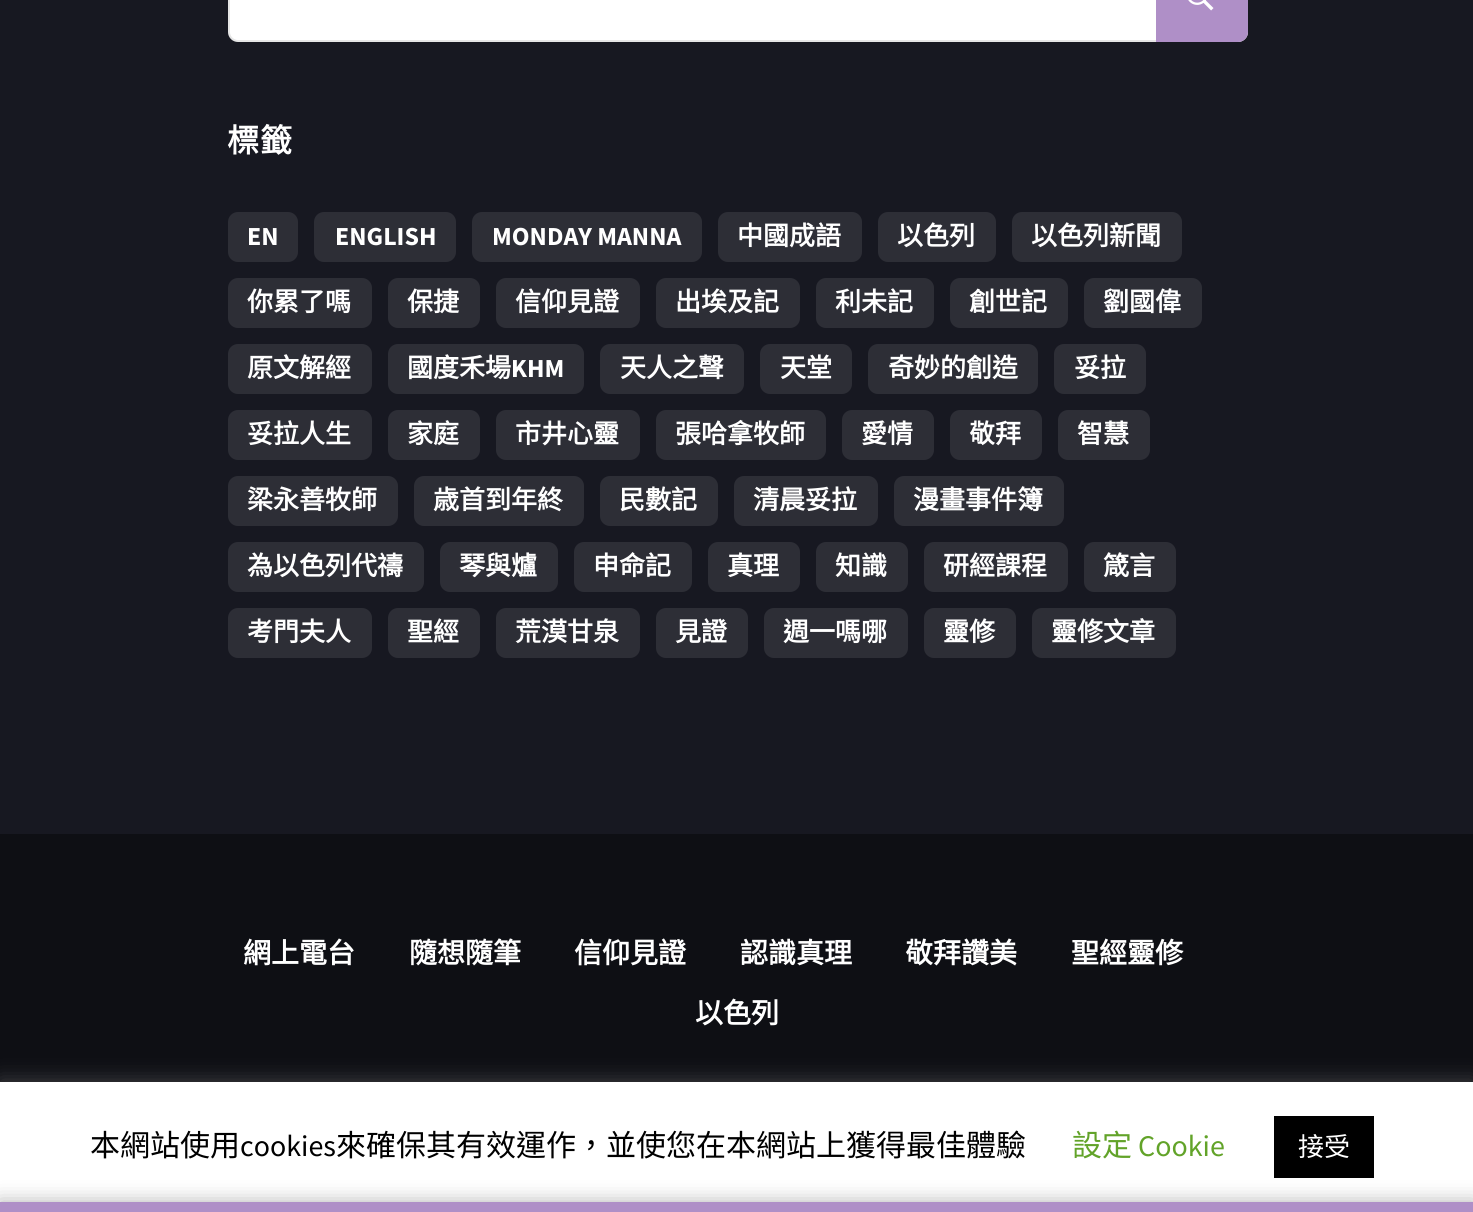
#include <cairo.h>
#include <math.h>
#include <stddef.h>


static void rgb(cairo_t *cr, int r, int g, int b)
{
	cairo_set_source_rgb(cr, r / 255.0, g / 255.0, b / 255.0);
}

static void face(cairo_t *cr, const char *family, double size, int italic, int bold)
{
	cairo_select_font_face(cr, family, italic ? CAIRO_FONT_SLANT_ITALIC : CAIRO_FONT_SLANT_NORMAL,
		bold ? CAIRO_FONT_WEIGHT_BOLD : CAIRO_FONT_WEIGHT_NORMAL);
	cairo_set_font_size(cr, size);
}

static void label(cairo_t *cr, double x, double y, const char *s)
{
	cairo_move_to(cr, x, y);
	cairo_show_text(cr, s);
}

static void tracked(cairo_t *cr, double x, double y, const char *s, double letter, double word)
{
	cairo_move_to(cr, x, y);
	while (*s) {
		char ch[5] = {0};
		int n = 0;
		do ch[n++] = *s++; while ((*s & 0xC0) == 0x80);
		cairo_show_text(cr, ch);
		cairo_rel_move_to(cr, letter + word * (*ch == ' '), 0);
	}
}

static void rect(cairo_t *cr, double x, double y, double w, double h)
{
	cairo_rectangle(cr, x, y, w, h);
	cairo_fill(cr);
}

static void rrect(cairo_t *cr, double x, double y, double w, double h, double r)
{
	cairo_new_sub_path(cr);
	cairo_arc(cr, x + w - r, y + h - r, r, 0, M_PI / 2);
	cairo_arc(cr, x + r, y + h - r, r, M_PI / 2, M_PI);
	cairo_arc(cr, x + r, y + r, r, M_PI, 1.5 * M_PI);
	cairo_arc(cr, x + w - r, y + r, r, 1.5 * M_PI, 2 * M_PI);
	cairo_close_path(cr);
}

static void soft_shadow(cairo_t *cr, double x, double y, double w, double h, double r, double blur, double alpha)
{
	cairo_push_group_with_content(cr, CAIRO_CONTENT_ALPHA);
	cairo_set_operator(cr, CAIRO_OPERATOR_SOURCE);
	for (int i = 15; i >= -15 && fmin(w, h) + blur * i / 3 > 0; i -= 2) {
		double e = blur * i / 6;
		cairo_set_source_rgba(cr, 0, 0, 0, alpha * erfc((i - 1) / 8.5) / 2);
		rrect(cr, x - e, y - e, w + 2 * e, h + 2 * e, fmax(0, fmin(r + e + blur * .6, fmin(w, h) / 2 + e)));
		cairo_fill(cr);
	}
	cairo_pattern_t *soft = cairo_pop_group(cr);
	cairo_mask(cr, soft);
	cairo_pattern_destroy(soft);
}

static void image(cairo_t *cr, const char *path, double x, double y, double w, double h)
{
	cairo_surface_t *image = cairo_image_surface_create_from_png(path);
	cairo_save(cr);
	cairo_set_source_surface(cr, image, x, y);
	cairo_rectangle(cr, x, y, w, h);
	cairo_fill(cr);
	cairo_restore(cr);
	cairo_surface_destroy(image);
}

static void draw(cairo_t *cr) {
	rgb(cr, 23, 24, 33);
	cairo_paint(cr);
	rgb(cr, 255, 255, 255);
	rrect(cr, 228, -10, 1020, 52, 10);
	cairo_fill(cr);
	rrect(cr, 229, -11, 1018, 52, 9);
	cairo_set_source_rgba(cr, 0, 0, 0, 0.1);
	cairo_stroke(cr);
	rgb(cr, 175, 143, 199);
	cairo_new_path(cr);
	cairo_move_to(cr, 1156, -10);
	cairo_line_to(cr, 1238, -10);
	cairo_curve_to(cr, 1243.5, -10, 1248, -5.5, 1248, 0);
	cairo_line_to(cr, 1248, 32);
	cairo_curve_to(cr, 1248, 37.5, 1243.5, 42, 1238, 42);
	cairo_line_to(cr, 1156, 42);
	cairo_close_path(cr);
	cairo_fill(cr);
	image(cr, "image0.png", 1188, 0, 26, 11);
	face(cr, "Noto Sans CJK TC", 32, 0, 1);
	rgb(cr, 255, 255, 255);
	tracked(cr, 227, 152, "標籤", 1, 0);
	rgb(cr, 45, 46, 54);
	rrect(cr, 228, 212, 70, 50, 10);
	cairo_fill(cr);
	face(cr, "Source Sans Pro", 26, 0, 1);
	rgb(cr, 255, 255, 255);
	label(cr, 247, 245, "EN");
	rgb(cr, 45, 46, 54);
	rrect(cr, 314, 212, 142, 50, 10);
	cairo_fill(cr);
	rgb(cr, 255, 255, 255);
	label(cr, 335, 245, "ENGLISH");
	rgb(cr, 45, 46, 54);
	rrect(cr, 472, 212, 230, 50, 10);
	cairo_fill(cr);
	rgb(cr, 255, 255, 255);
	label(cr, 492, 245, "MONDAY MANNA");
	rgb(cr, 45, 46, 54);
	rrect(cr, 718, 212, 144, 50, 10);
	cairo_fill(cr);
	face(cr, "Noto Sans CJK TC", 26, 0, 1);
	rgb(cr, 255, 255, 255);
	label(cr, 737, 245, "中國成語");
	rgb(cr, 45, 46, 54);
	rrect(cr, 878, 212, 118, 50, 10);
	cairo_fill(cr);
	rgb(cr, 255, 255, 255);
	label(cr, 897, 245, "以色列");
	rgb(cr, 45, 46, 54);
	rrect(cr, 1012, 212, 170, 50, 10);
	cairo_fill(cr);
	rgb(cr, 255, 255, 255);
	label(cr, 1031, 245, "以色列新聞");
	rgb(cr, 45, 46, 54);
	rrect(cr, 228, 278, 144, 50, 10);
	cairo_fill(cr);
	rgb(cr, 255, 255, 255);
	label(cr, 247, 311, "你累了嗎");
	rgb(cr, 45, 46, 54);
	rrect(cr, 388, 278, 92, 50, 10);
	cairo_fill(cr);
	rgb(cr, 255, 255, 255);
	label(cr, 407, 311, "保捷");
	rgb(cr, 45, 46, 54);
	rrect(cr, 496, 278, 144, 50, 10);
	cairo_fill(cr);
	rgb(cr, 255, 255, 255);
	label(cr, 515, 311, "信仰見證");
	rgb(cr, 45, 46, 54);
	rrect(cr, 656, 278, 144, 50, 10);
	cairo_fill(cr);
	rgb(cr, 255, 255, 255);
	label(cr, 675, 311, "出埃及記");
	rgb(cr, 45, 46, 54);
	rrect(cr, 816, 278, 118, 50, 10);
	cairo_fill(cr);
	rgb(cr, 255, 255, 255);
	label(cr, 835, 311, "利未記");
	rgb(cr, 45, 46, 54);
	rrect(cr, 950, 278, 118, 50, 10);
	cairo_fill(cr);
	rgb(cr, 255, 255, 255);
	label(cr, 969, 311, "創世記");
	rgb(cr, 45, 46, 54);
	rrect(cr, 1084, 278, 118, 50, 10);
	cairo_fill(cr);
	rgb(cr, 255, 255, 255);
	label(cr, 1103, 311, "劉國偉");
	rgb(cr, 45, 46, 54);
	rrect(cr, 228, 344, 144, 50, 10);
	cairo_fill(cr);
	rgb(cr, 255, 255, 255);
	label(cr, 247, 377, "原文解經");
	rgb(cr, 45, 46, 54);
	rrect(cr, 388, 344, 196, 50, 10);
	cairo_fill(cr);
	rgb(cr, 255, 255, 255);
	label(cr, 407, 377, "國度禾場");
	face(cr, "Source Sans Pro", 26, 0, 1);
	label(cr, 511, 377, "KHM");
	rgb(cr, 45, 46, 54);
	rrect(cr, 600, 344, 144, 50, 10);
	cairo_fill(cr);
	face(cr, "Noto Sans CJK TC", 26, 0, 1);
	rgb(cr, 255, 255, 255);
	label(cr, 620, 377, "天人之聲");
	rgb(cr, 45, 46, 54);
	rrect(cr, 760, 344, 92, 50, 10);
	cairo_fill(cr);
	rgb(cr, 255, 255, 255);
	label(cr, 780, 377, "天堂");
	rgb(cr, 45, 46, 54);
	rrect(cr, 868, 344, 170, 50, 10);
	cairo_fill(cr);
	rgb(cr, 255, 255, 255);
	label(cr, 888, 377, "奇妙的創造");
	rgb(cr, 45, 46, 54);
	rrect(cr, 1054, 344, 92, 50, 10);
	cairo_fill(cr);
	rgb(cr, 255, 255, 255);
	label(cr, 1074, 377, "妥拉");
	rgb(cr, 45, 46, 54);
	rrect(cr, 228, 410, 144, 50, 10);
	cairo_fill(cr);
	rgb(cr, 255, 255, 255);
	label(cr, 247, 443, "妥拉人生");
	rgb(cr, 45, 46, 54);
	rrect(cr, 388, 410, 92, 50, 10);
	cairo_fill(cr);
	rgb(cr, 255, 255, 255);
	label(cr, 407, 443, "家庭");
	rgb(cr, 45, 46, 54);
	rrect(cr, 496, 410, 144, 50, 10);
	cairo_fill(cr);
	rgb(cr, 255, 255, 255);
	label(cr, 515, 443, "市井心靈");
	rgb(cr, 45, 46, 54);
	rrect(cr, 656, 410, 170, 50, 10);
	cairo_fill(cr);
	rgb(cr, 255, 255, 255);
	label(cr, 675, 443, "張哈拿牧師");
	rgb(cr, 45, 46, 54);
	rrect(cr, 842, 410, 92, 50, 10);
	cairo_fill(cr);
	rgb(cr, 255, 255, 255);
	label(cr, 861, 443, "愛情");
	rgb(cr, 45, 46, 54);
	rrect(cr, 950, 410, 92, 50, 10);
	cairo_fill(cr);
	rgb(cr, 255, 255, 255);
	label(cr, 969, 443, "敬拜");
	rgb(cr, 45, 46, 54);
	rrect(cr, 1058, 410, 92, 50, 10);
	cairo_fill(cr);
	rgb(cr, 255, 255, 255);
	label(cr, 1077, 443, "智慧");
	rgb(cr, 45, 46, 54);
	rrect(cr, 228, 476, 170, 50, 10);
	cairo_fill(cr);
	rgb(cr, 255, 255, 255);
	label(cr, 247, 509, "梁永善牧師");
	rgb(cr, 45, 46, 54);
	rrect(cr, 414, 476, 170, 50, 10);
	cairo_fill(cr);
	rgb(cr, 255, 255, 255);
	label(cr, 433, 509, "歳首到年終");
	rgb(cr, 45, 46, 54);
	rrect(cr, 600, 476, 118, 50, 10);
	cairo_fill(cr);
	rgb(cr, 255, 255, 255);
	label(cr, 619, 509, "民數記");
	rgb(cr, 45, 46, 54);
	rrect(cr, 734, 476, 144, 50, 10);
	cairo_fill(cr);
	rgb(cr, 255, 255, 255);
	label(cr, 753, 509, "清晨妥拉");
	rgb(cr, 45, 46, 54);
	rrect(cr, 894, 476, 170, 50, 10);
	cairo_fill(cr);
	rgb(cr, 255, 255, 255);
	label(cr, 913, 509, "漫畫事件簿");
	rgb(cr, 45, 46, 54);
	rrect(cr, 228, 542, 196, 50, 10);
	cairo_fill(cr);
	rgb(cr, 255, 255, 255);
	label(cr, 247, 575, "為以色列代禱");
	rgb(cr, 45, 46, 54);
	rrect(cr, 440, 542, 118, 50, 10);
	cairo_fill(cr);
	rgb(cr, 255, 255, 255);
	label(cr, 459, 575, "琴與爐");
	rgb(cr, 45, 46, 54);
	rrect(cr, 574, 542, 118, 50, 10);
	cairo_fill(cr);
	rgb(cr, 255, 255, 255);
	label(cr, 593, 575, "申命記");
	rgb(cr, 45, 46, 54);
	rrect(cr, 708, 542, 92, 50, 10);
	cairo_fill(cr);
	rgb(cr, 255, 255, 255);
	label(cr, 727, 575, "真理");
	rgb(cr, 45, 46, 54);
	rrect(cr, 816, 542, 92, 50, 10);
	cairo_fill(cr);
	rgb(cr, 255, 255, 255);
	label(cr, 835, 575, "知識");
	rgb(cr, 45, 46, 54);
	rrect(cr, 924, 542, 144, 50, 10);
	cairo_fill(cr);
	rgb(cr, 255, 255, 255);
	label(cr, 943, 575, "研經課程");
	rgb(cr, 45, 46, 54);
	rrect(cr, 1084, 542, 92, 50, 10);
	cairo_fill(cr);
	rgb(cr, 255, 255, 255);
	label(cr, 1103, 575, "箴言");
	rgb(cr, 45, 46, 54);
	rrect(cr, 228, 608, 144, 50, 10);
	cairo_fill(cr);
	rgb(cr, 255, 255, 255);
	label(cr, 247, 641, "考門夫人");
	rgb(cr, 45, 46, 54);
	rrect(cr, 388, 608, 92, 50, 10);
	cairo_fill(cr);
	rgb(cr, 255, 255, 255);
	label(cr, 407, 641, "聖經");
	rgb(cr, 45, 46, 54);
	rrect(cr, 496, 608, 144, 50, 10);
	cairo_fill(cr);
	rgb(cr, 255, 255, 255);
	label(cr, 515, 641, "荒漠甘泉");
	rgb(cr, 45, 46, 54);
	rrect(cr, 656, 608, 92, 50, 10);
	cairo_fill(cr);
	rgb(cr, 255, 255, 255);
	label(cr, 675, 641, "見證");
	rgb(cr, 45, 46, 54);
	rrect(cr, 764, 608, 144, 50, 10);
	cairo_fill(cr);
	rgb(cr, 255, 255, 255);
	label(cr, 783, 641, "週一嗎哪");
	rgb(cr, 45, 46, 54);
	rrect(cr, 924, 608, 92, 50, 10);
	cairo_fill(cr);
	rgb(cr, 255, 255, 255);
	label(cr, 943, 641, "靈修");
	rgb(cr, 45, 46, 54);
	rrect(cr, 1032, 608, 144, 50, 10);
	cairo_fill(cr);
	rgb(cr, 255, 255, 255);
	label(cr, 1051, 641, "靈修文章");
	rgb(cr, 14, 15, 20);
	rect(cr, 0, 834, 1473, 248);
	face(cr, "Noto Sans CJK TC", 28, 0, 1);
	rgb(cr, 255, 255, 255);
	label(cr, 243, 963, "網上電台");
	label(cr, 409, 963, "隨想隨筆");
	label(cr, 574, 963, "信仰見證");
	label(cr, 740, 963, "認識真理");
	label(cr, 905, 963, "敬拜讚美");
	label(cr, 1071, 963, "聖經靈修");
	label(cr, 695, 1023, "以色列");
	rgb(cr, 172, 171, 171);
	soft_shadow(cr, 0, 1080, 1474, 130, 0, 10, 0.3);
	rgb(cr, 255, 255, 255);
	rect(cr, 0, 1082, 1473, 120);
	face(cr, "Noto Sans CJK TC", 30, 0, 0);
	rgb(cr, 0, 0, 0);
	label(cr, 90, 1156, "本網站使用");
	face(cr, "Source Sans Pro", 30, 0, 0);
	label(cr, 240, 1156, "cookies");
	face(cr, "Noto Sans CJK TC", 30, 0, 0);
	label(cr, 336, 1156, "來確保其有效運作，並使您在本網站上獲得最佳體驗");
	rgb(cr, 98, 163, 41);
	label(cr, 1072, 1156, "設定");
	face(cr, "Source Sans Pro", 30, 0, 0);
	label(cr, 1138, 1156, "Cookie");
	rgb(cr, 0, 0, 0);
	rect(cr, 1274, 1116, 100, 62);
	face(cr, "Noto Sans CJK TC", 26, 0, 0);
	rgb(cr, 255, 255, 255);
	label(cr, 1298, 1156, "接受");
	rgb(cr, 0, 0, 0);
	soft_shadow(cr, 0, 1202, 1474, 10, 0, 10, 0.3);
	rgb(cr, 175, 143, 199);
	rect(cr, 0, 1202, 1473, 10);
}

int main(void) {
	cairo_surface_t *surface = cairo_image_surface_create(CAIRO_FORMAT_RGB24, 1473, 1212);
	cairo_t *cr = cairo_create(surface);
	cairo_font_options_t *options = cairo_font_options_create();
	cairo_font_options_set_hint_metrics(options, CAIRO_HINT_METRICS_OFF);
	cairo_font_options_set_hint_style(options, CAIRO_HINT_STYLE_NONE);
	cairo_set_font_options(cr, options);
	cairo_set_miter_limit(cr, 4);
	draw(cr);
	cairo_surface_write_to_png(surface, "render.png");
	cairo_font_options_destroy(options);
	cairo_destroy(cr);
	cairo_surface_destroy(surface);
	return 0;
}
